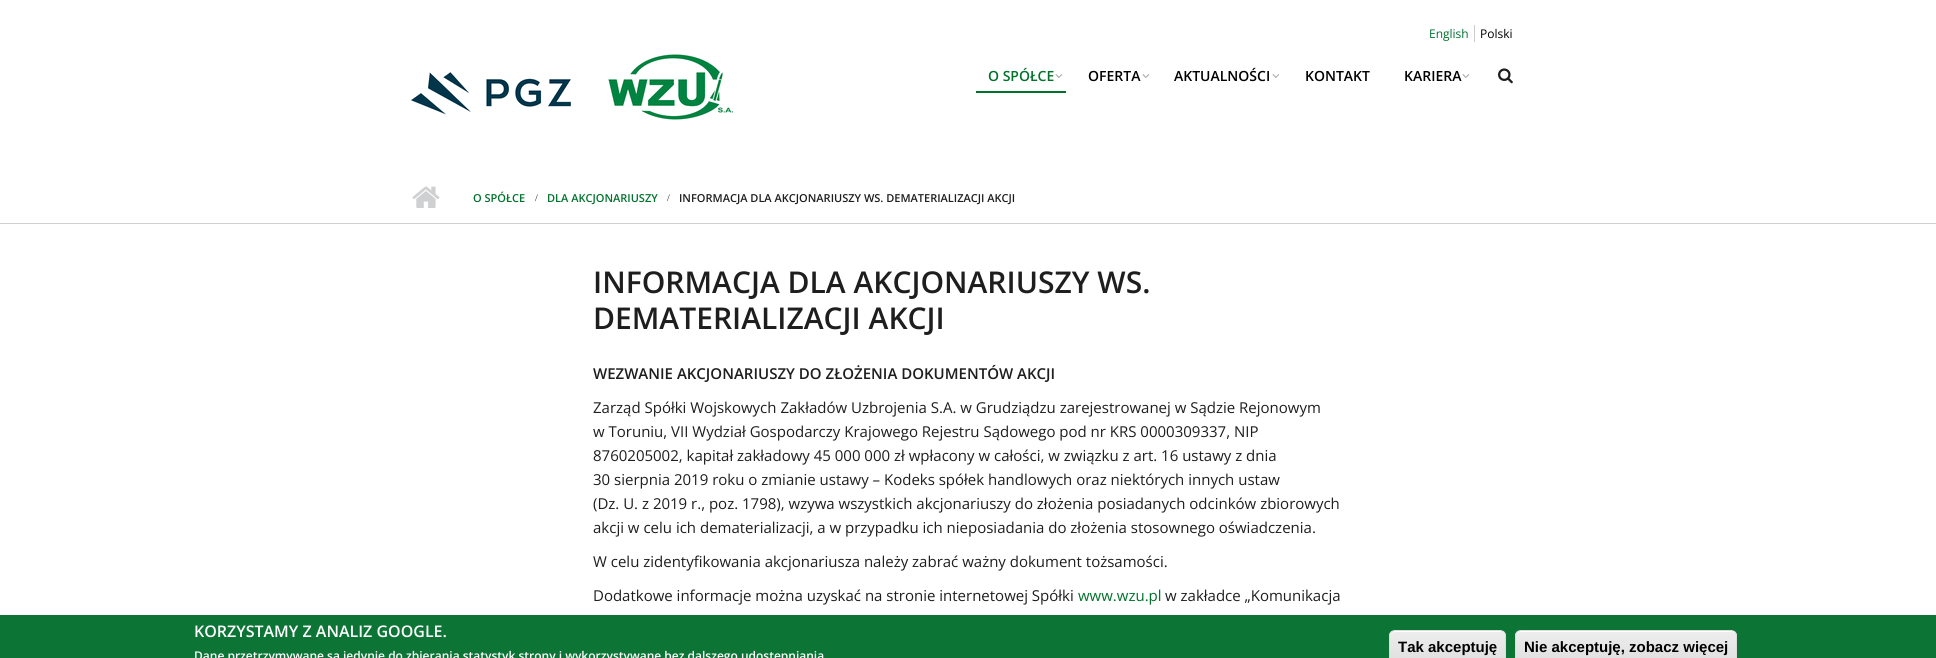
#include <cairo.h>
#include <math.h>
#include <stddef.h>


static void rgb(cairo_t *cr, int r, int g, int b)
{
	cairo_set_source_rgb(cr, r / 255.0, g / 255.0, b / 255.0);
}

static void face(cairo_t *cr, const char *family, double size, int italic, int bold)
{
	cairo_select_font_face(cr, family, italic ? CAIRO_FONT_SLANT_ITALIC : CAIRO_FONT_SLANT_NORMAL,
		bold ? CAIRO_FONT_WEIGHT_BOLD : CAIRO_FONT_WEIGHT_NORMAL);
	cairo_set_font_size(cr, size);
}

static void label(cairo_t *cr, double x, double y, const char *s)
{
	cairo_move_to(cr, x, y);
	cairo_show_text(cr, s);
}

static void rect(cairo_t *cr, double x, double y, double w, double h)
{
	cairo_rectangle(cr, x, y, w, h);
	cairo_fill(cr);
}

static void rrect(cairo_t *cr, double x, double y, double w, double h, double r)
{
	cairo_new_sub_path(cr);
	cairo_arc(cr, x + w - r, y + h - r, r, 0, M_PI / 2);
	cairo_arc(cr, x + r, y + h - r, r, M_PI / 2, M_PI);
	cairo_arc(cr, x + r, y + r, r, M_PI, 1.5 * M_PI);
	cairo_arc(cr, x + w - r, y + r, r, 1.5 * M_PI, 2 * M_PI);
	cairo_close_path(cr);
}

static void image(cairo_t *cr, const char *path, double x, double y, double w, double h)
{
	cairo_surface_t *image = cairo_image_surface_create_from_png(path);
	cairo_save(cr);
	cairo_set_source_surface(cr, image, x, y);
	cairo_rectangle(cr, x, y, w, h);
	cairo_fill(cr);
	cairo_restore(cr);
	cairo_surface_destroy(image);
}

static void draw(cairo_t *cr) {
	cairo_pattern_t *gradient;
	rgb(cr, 255, 255, 255);
	cairo_paint(cr);
	face(cr, "Open Sans", 12, 0, 0);
	rgb(cr, 0, 114, 44);
	label(cr, 1429, 38, "English");
	rgb(cr, 204, 204, 204);
	rect(cr, 1474, 25, 1, 17);
	rgb(cr, 0, 0, 0);
	label(cr, 1480, 38, "Polski");
	image(cr, "image0.png", 411, 72, 160, 43);
	image(cr, "image1.png", 608, 54, 125, 66);
	rgb(cr, 0, 114, 44);
	rect(cr, 976, 91, 90, 2);
	face(cr, "Open Sans SemiBold", 14, 0, 0);
	label(cr, 988, 81, "O SPÓŁCE");
	image(cr, "image2.png", 1055, 74, 8, 4);
	rgb(cr, 0, 0, 0);
	label(cr, 1088, 81, "OFERTA");
	image(cr, "image2.png", 1142, 74, 8, 4);
	label(cr, 1174, 81, "AKTUALNOŚCI");
	image(cr, "image2.png", 1272, 74, 8, 4);
	label(cr, 1305, 81, "KONTAKT");
	label(cr, 1404, 81, "KARIERA");
	image(cr, "image2.png", 1462, 74, 8, 4);
	image(cr, "image3.png", 1498, 68, 15, 16);
	rgb(cr, 207, 208, 210);
	rect(cr, 0, 223, 1936, 1);
	image(cr, "image4.png", 412, 186, 28, 22);
	face(cr, "Open Sans SemiBold", 11, 0, 0);
	rgb(cr, 0, 114, 44);
	label(cr, 473, 202, "O SPÓŁCE");
	face(cr, "Liberation Serif", 10, 0, 0);
	rgb(cr, 30, 30, 30);
	label(cr, 535, 201, "/");
	face(cr, "Open Sans SemiBold", 11, 0, 0);
	rgb(cr, 0, 114, 44);
	label(cr, 547, 202, "DLA AKCJONARIUSZY");
	face(cr, "Liberation Serif", 10, 0, 0);
	rgb(cr, 30, 30, 30);
	label(cr, 667, 201, "/");
	face(cr, "Open Sans SemiBold", 11, 0, 0);
	label(cr, 679, 202, "INFORMACJA DLA AKCJONARIUSZY WS. DEMATERIALIZACJI AKCJI");
	face(cr, "Open Sans SemiBold", 30, 0, 0);
	label(cr, 593, 293, "INFORMACJA DLA AKCJONARIUSZY WS.");
	label(cr, 593, 329, "DEMATERIALIZACJI AKCJI");
	face(cr, "Open Sans SemiBold", 15, 0, 0);
	label(cr, 593, 379, "WEZWANIE AKCJONARIUSZY DO ZŁOŻENIA DOKUMENTÓW AKCJI");
	face(cr, "Open Sans", 15, 0, 0);
	label(cr, 593, 413, "Zarząd Spółki Wojskowych Zakładów Uzbrojenia S.A. w Grudziądzu zarejestrowanej w Sądzie Rejonowym");
	label(cr, 593, 437, "w Toruniu, VII Wydział Gospodarczy Krajowego Rejestru Sądowego pod nr KRS 0000309337, NIP");
	label(cr, 593, 461, "8760205002, kapitał zakładowy 45 000 000 zł wpłacony w całości, w związku z art. 16 ustawy z dnia");
	label(cr, 593, 485, "30 sierpnia 2019 roku o zmianie ustawy – Kodeks spółek handlowych oraz niektórych innych ustaw");
	label(cr, 593, 509, "(Dz. U. z 2019 r., poz. 1798), wzywa wszystkich akcjonariuszy do złożenia posiadanych odcinków zbiorowych");
	label(cr, 593, 533, "akcji w celu ich dematerializacji, a w przypadku ich nieposiadania do złożenia stosownego oświadczenia.");
	label(cr, 593, 567, "W celu zidentyfikowania akcjonariusza należy zabrać ważny dokument tożsamości.");
	label(cr, 593, 601, "Dodatkowe informacje można uzyskać na stronie internetowej Spółki");
	rgb(cr, 0, 114, 44);
	label(cr, 1078, 601, "www.wzu.pl");
	rgb(cr, 30, 30, 30);
	label(cr, 1165, 601, "w zakładce „Komunikacja");
	rgb(cr, 12, 117, 54);
	rect(cr, 0, 615, 1936, 43);
	face(cr, "Open Sans SemiBold", 16, 0, 0);
	rgb(cr, 255, 255, 255);
	label(cr, 194, 637, "KORZYSTAMY Z ANALIZ GOOGLE.");
	face(cr, "Open Sans SemiBold", 12, 0, 0);
	label(cr, 194, 660, "Dane przetrzymywane są jedynie do zbierania statystyk strony i wykorzystywane bez dalszego udostępniania");
	cairo_save(cr);
	rrect(cr, 1389, 630, 117, 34, 6);
	cairo_clip(cr);
	gradient = cairo_pattern_create_linear(1390, 631, 1390, 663);
	cairo_pattern_add_color_stop_rgba(gradient, 0.05, 0.929, 0.929, 0.929, 1);
	cairo_pattern_add_color_stop_rgba(gradient, 1, 0.875, 0.875, 0.875, 1);
	cairo_set_source(cr, gradient);
	cairo_pattern_destroy(gradient);
	rect(cr, 1389, 631, 117, 27);
	cairo_restore(cr);
	cairo_new_path(cr);
	cairo_move_to(cr, 1395, 632);
	cairo_line_to(cr, 1500, 632);
	cairo_curve_to(cr, 1503, 632, 1505, 634, 1505, 637);
	cairo_curve_to(cr, 1505, 627, 1487, 631, 1482, 631);
	cairo_line_to(cr, 1412, 631);
	cairo_curve_to(cr, 1408, 631, 1390, 627, 1390, 637);
	cairo_curve_to(cr, 1390, 634, 1392, 632, 1395, 632);
	cairo_close_path(cr);
	cairo_fill(cr);
	rrect(cr, 1389.5, 630.5, 116, 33, 5.5);
	rgb(cr, 220, 220, 220);
	cairo_set_line_width(cr, 1);
	cairo_stroke(cr);
	face(cr, "Liberation Sans", 15, 0, 1);
	rgb(cr, 0, 0, 0);
	label(cr, 1398, 652, "Tak akceptuję");
	cairo_save(cr);
	rrect(cr, 1515, 630, 222, 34, 6);
	cairo_clip(cr);
	gradient = cairo_pattern_create_linear(1516, 631, 1516, 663);
	cairo_pattern_add_color_stop_rgba(gradient, 0.05, 0.929, 0.929, 0.929, 1);
	cairo_pattern_add_color_stop_rgba(gradient, 1, 0.875, 0.875, 0.875, 1);
	cairo_set_source(cr, gradient);
	cairo_pattern_destroy(gradient);
	rect(cr, 1515, 631, 222, 27);
	cairo_restore(cr);
	rgb(cr, 255, 255, 255);
	cairo_new_path(cr);
	cairo_move_to(cr, 1521, 632);
	cairo_line_to(cr, 1731, 632);
	cairo_curve_to(cr, 1734, 632, 1736, 634, 1736, 637);
	cairo_curve_to(cr, 1736, 634, 1734, 631, 1731, 631);
	cairo_line_to(cr, 1520, 631);
	cairo_curve_to(cr, 1517, 632, 1516, 634, 1516, 637);
	cairo_curve_to(cr, 1516, 634, 1518, 632, 1521, 632);
	cairo_close_path(cr);
	cairo_fill(cr);
	rrect(cr, 1515.5, 630.5, 221, 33, 5.5);
	rgb(cr, 220, 220, 220);
	cairo_stroke(cr);
	rgb(cr, 0, 0, 0);
	label(cr, 1524, 652, "Nie akceptuję, zobacz więcej");
}

int main(void) {
	cairo_surface_t *surface = cairo_image_surface_create(CAIRO_FORMAT_RGB24, 1936, 658);
	cairo_t *cr = cairo_create(surface);
	cairo_font_options_t *options = cairo_font_options_create();
	cairo_font_options_set_hint_metrics(options, CAIRO_HINT_METRICS_OFF);
	cairo_font_options_set_hint_style(options, CAIRO_HINT_STYLE_NONE);
	cairo_set_font_options(cr, options);
	cairo_set_miter_limit(cr, 4);
	draw(cr);
	cairo_surface_write_to_png(surface, "render.png");
	cairo_font_options_destroy(options);
	cairo_destroy(cr);
	cairo_surface_destroy(surface);
	return 0;
}
